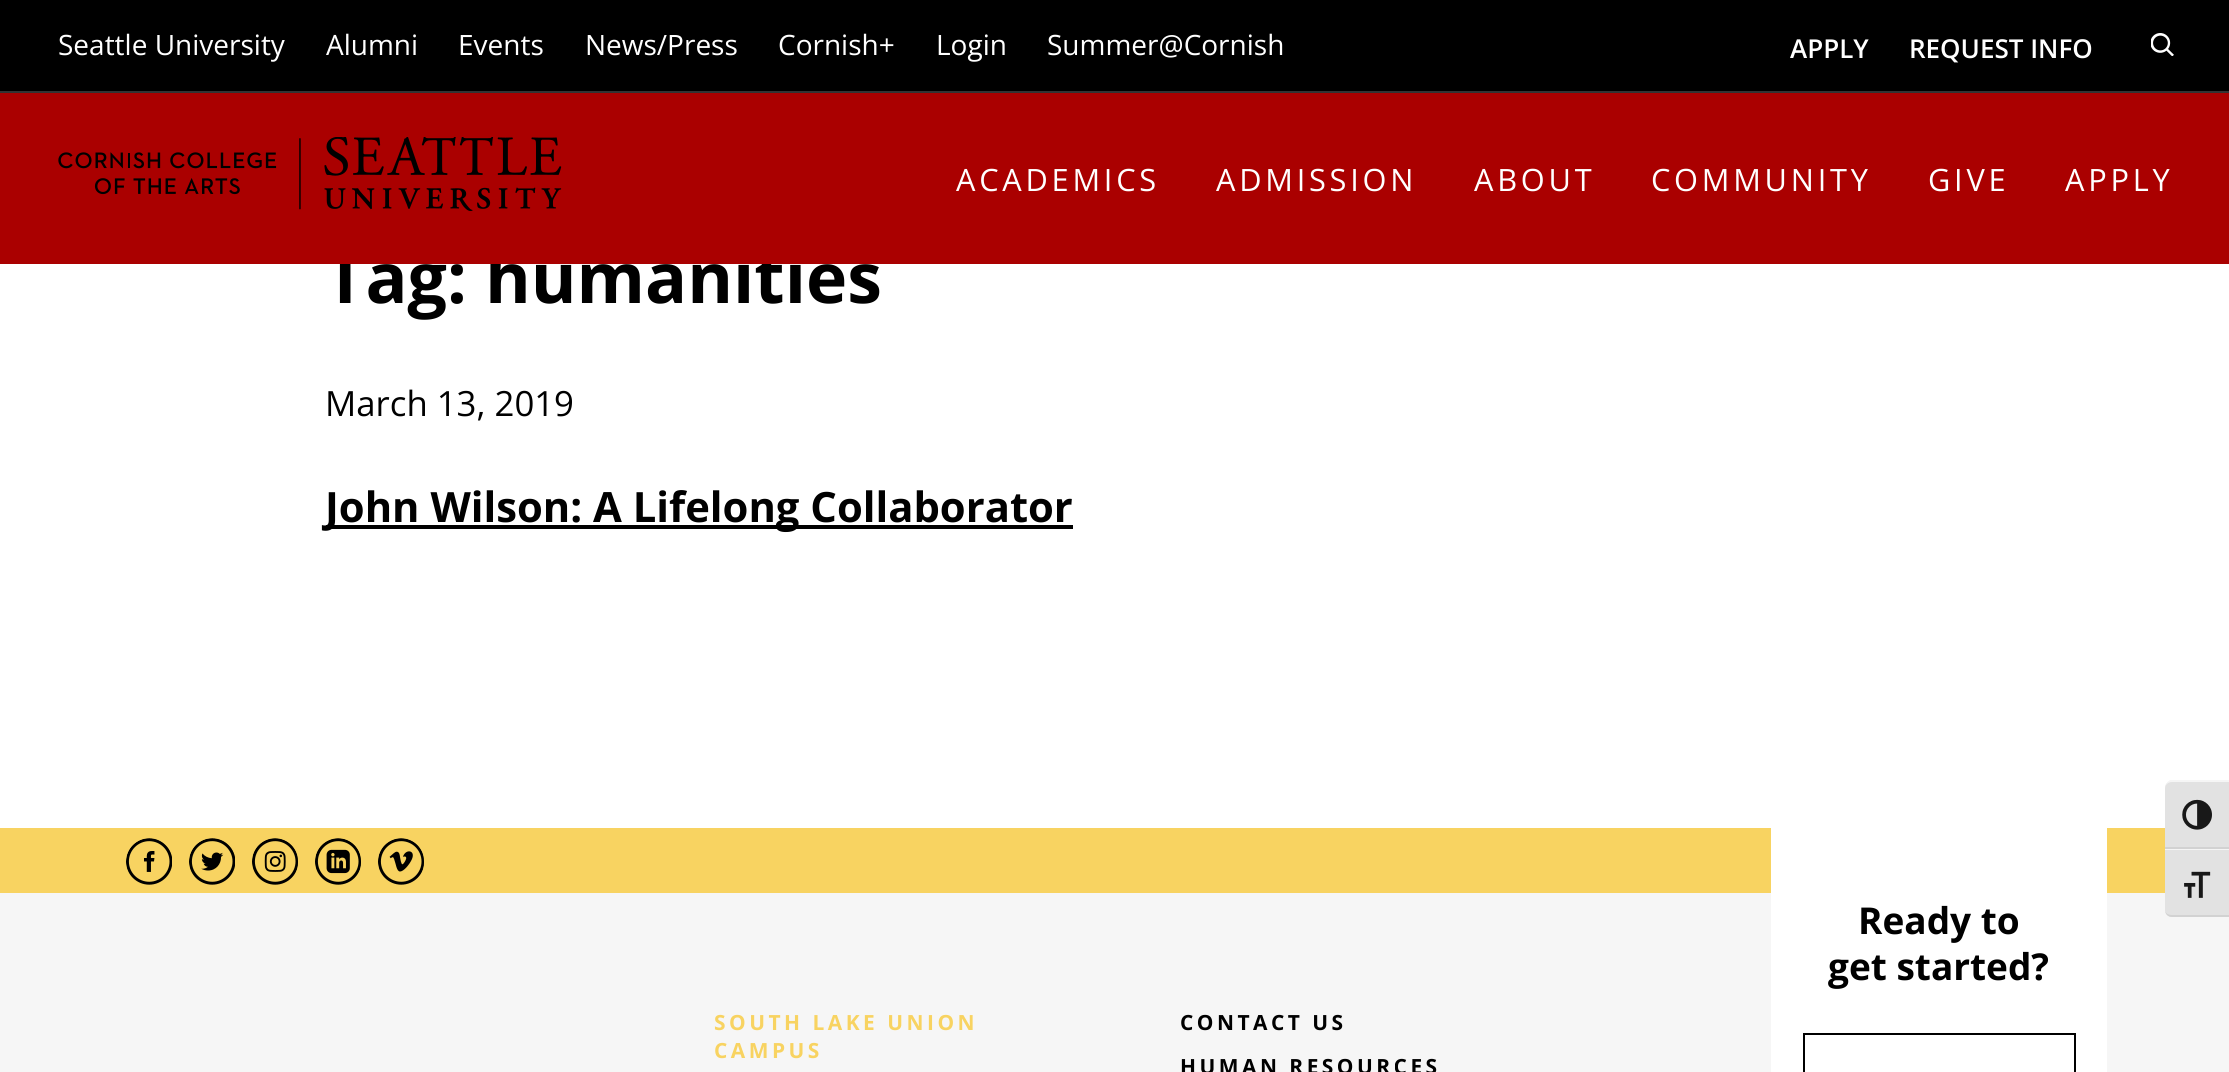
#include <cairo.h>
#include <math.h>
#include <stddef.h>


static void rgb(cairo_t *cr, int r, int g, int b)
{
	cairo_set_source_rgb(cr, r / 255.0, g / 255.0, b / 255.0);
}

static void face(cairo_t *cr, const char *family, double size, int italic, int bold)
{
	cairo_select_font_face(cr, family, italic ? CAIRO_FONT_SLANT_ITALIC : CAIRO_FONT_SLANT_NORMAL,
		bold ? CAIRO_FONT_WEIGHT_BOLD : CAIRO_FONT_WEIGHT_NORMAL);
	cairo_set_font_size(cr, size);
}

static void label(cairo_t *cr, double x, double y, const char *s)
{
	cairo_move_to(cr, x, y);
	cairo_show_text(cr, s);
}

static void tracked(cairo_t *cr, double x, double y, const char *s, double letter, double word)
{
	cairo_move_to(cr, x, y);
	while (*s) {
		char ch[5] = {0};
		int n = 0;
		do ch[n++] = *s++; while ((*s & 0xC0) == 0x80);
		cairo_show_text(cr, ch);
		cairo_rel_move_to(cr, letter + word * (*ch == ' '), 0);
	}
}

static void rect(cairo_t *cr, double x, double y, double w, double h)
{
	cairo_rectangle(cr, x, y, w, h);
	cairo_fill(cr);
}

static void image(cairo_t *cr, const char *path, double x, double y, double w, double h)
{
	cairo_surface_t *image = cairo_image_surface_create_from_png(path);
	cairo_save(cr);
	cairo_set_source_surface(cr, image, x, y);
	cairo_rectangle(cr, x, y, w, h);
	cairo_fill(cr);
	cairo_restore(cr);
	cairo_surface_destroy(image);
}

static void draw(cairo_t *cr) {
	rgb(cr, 255, 255, 255);
	cairo_paint(cr);
	face(cr, "Open Sans", 69.75, 0, 1);
	rgb(cr, 0, 0, 0);
	label(cr, 325, 303, "Tag: humanities");
	rgb(cr, 170, 0, 0);
	rect(cr, 0, 93, 2229, 171);
	rgb(cr, 0, 0, 0);
	rect(cr, 0, 0, 2229, 91);
	rgb(cr, 51, 51, 51);
	rect(cr, 0, 91, 2229, 2);
	face(cr, "Open Sans", 28, 0, 0);
	rgb(cr, 255, 255, 255);
	label(cr, 58, 55, "Seattle University");
	label(cr, 326, 55, "Alumni");
	label(cr, 458, 55, "Events");
	label(cr, 585, 55, "News/Press");
	label(cr, 778, 55, "Cornish+");
	label(cr, 936, 55, "Login");
	label(cr, 1047, 55, "Summer@Cornish");
	face(cr, "Open Sans SemiBold", 26, 0, 0);
	label(cr, 1790, 58, "APPLY");
	label(cr, 1909, 58, "REQUEST INFO");
	image(cr, "image0.png", 2151, 33, 23, 23);
	image(cr, "image1.png", 58, 137, 504, 74);
	face(cr, "Open Sans", 30.75, 0, 0);
	tracked(cr, 956, 191, "ACADEMICS", 3.75, 0);
	tracked(cr, 1216, 191, "ADMISSION", 3.75, 0);
	tracked(cr, 1474, 191, "ABOUT", 3.75, 0);
	tracked(cr, 1651, 191, "COMMUNITY", 3.75, 0);
	tracked(cr, 1928, 191, "GIVE", 3.75, 0);
	tracked(cr, 2065, 191, "APPLY", 3.75, 0);
	face(cr, "Open Sans", 34.75, 0, 0);
	rgb(cr, 0, 0, 0);
	label(cr, 325, 416, "March 13, 2019");
	rect(cr, 326, 525, 747, 4);
	face(cr, "Open Sans", 41.75, 0, 1);
	label(cr, 325, 522, "John Wilson: A Lifelong Collaborator");
	rgb(cr, 246, 246, 246);
	rect(cr, 0, 893, 2229, 179);
	rgb(cr, 248, 211, 97);
	rect(cr, 0, 828, 2165, 65);
	image(cr, "image2.png", 126, 838, 46, 47);
	image(cr, "image3.png", 189, 838, 46, 47);
	image(cr, "image4.png", 252, 838, 46, 47);
	image(cr, "image5.png", 315, 838, 46, 47);
	image(cr, "image6.png", 378, 838, 46, 47);
	rgb(cr, 226, 226, 226);
	cairo_new_path(cr);
	cairo_move_to(cr, 2172, 781);
	cairo_line_to(cr, 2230, 781);
	cairo_line_to(cr, 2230, 849);
	cairo_line_to(cr, 2165, 849);
	cairo_line_to(cr, 2165, 788);
	cairo_curve_to(cr, 2165, 784, 2168, 781, 2172, 781);
	cairo_close_path(cr);
	cairo_fill(cr);
	rgb(cr, 245, 245, 245);
	cairo_new_path(cr);
	cairo_move_to(cr, 2172, 782);
	cairo_line_to(cr, 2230, 782);
	cairo_line_to(cr, 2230, 780);
	cairo_line_to(cr, 2170, 780);
	cairo_curve_to(cr, 2167, 782, 2165, 785, 2165, 788);
	cairo_curve_to(cr, 2165, 785, 2168, 782, 2172, 782);
	cairo_close_path(cr);
	cairo_fill(cr);
	rgb(cr, 210, 210, 210);
	rect(cr, 2165, 847, 64, 2);
	image(cr, "image7.png", 2182, 799, 30, 31);
	rgb(cr, 226, 226, 226);
	cairo_new_path(cr);
	cairo_move_to(cr, 2165, 849);
	cairo_line_to(cr, 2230, 849);
	cairo_line_to(cr, 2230, 917);
	cairo_line_to(cr, 2172, 917);
	cairo_curve_to(cr, 2168, 917, 2165, 914, 2165, 910);
	cairo_close_path(cr);
	cairo_fill(cr);
	rgb(cr, 245, 245, 245);
	rect(cr, 2165, 849, 64, 1);
	rgb(cr, 210, 210, 210);
	cairo_new_path(cr);
	cairo_move_to(cr, 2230, 917);
	cairo_line_to(cr, 2172, 917);
	cairo_curve_to(cr, 2168, 917, 2165, 914, 2165, 910);
	cairo_curve_to(cr, 2165, 913, 2168, 915, 2172, 915);
	cairo_line_to(cr, 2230, 915);
	cairo_close_path(cr);
	cairo_fill(cr);
	image(cr, "image8.png", 2184, 871, 27, 27);
	rgb(cr, 255, 255, 255);
	rect(cr, 1771, 828, 336, 244);
	face(cr, "Open Sans", 37, 0, 1);
	rgb(cr, 0, 0, 0);
	label(cr, 1858, 934, "Ready to");
	label(cr, 1828, 980, "get started?");
	cairo_rectangle(cr, 1804, 1034, 271, 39);
	cairo_stroke(cr);
	face(cr, "Open Sans", 20.9, 0, 1);
	rgb(cr, 248, 211, 97);
	tracked(cr, 714, 1030, "SOUTH LAKE UNION", 3.5, 0);
	tracked(cr, 714, 1058, "CAMPUS", 3.5, 0);
	rgb(cr, 0, 0, 0);
	tracked(cr, 1180, 1030, "CONTACT US", 3.5, 0);
	tracked(cr, 1180, 1074, "HUMAN RESOURCES", 3.5, 0);
}

int main(void) {
	cairo_surface_t *surface = cairo_image_surface_create(CAIRO_FORMAT_RGB24, 2229, 1072);
	cairo_t *cr = cairo_create(surface);
	cairo_font_options_t *options = cairo_font_options_create();
	cairo_font_options_set_hint_metrics(options, CAIRO_HINT_METRICS_OFF);
	cairo_font_options_set_hint_style(options, CAIRO_HINT_STYLE_NONE);
	cairo_set_font_options(cr, options);
	cairo_set_miter_limit(cr, 4);
	draw(cr);
	cairo_surface_write_to_png(surface, "render.png");
	cairo_font_options_destroy(options);
	cairo_destroy(cr);
	cairo_surface_destroy(surface);
	return 0;
}
